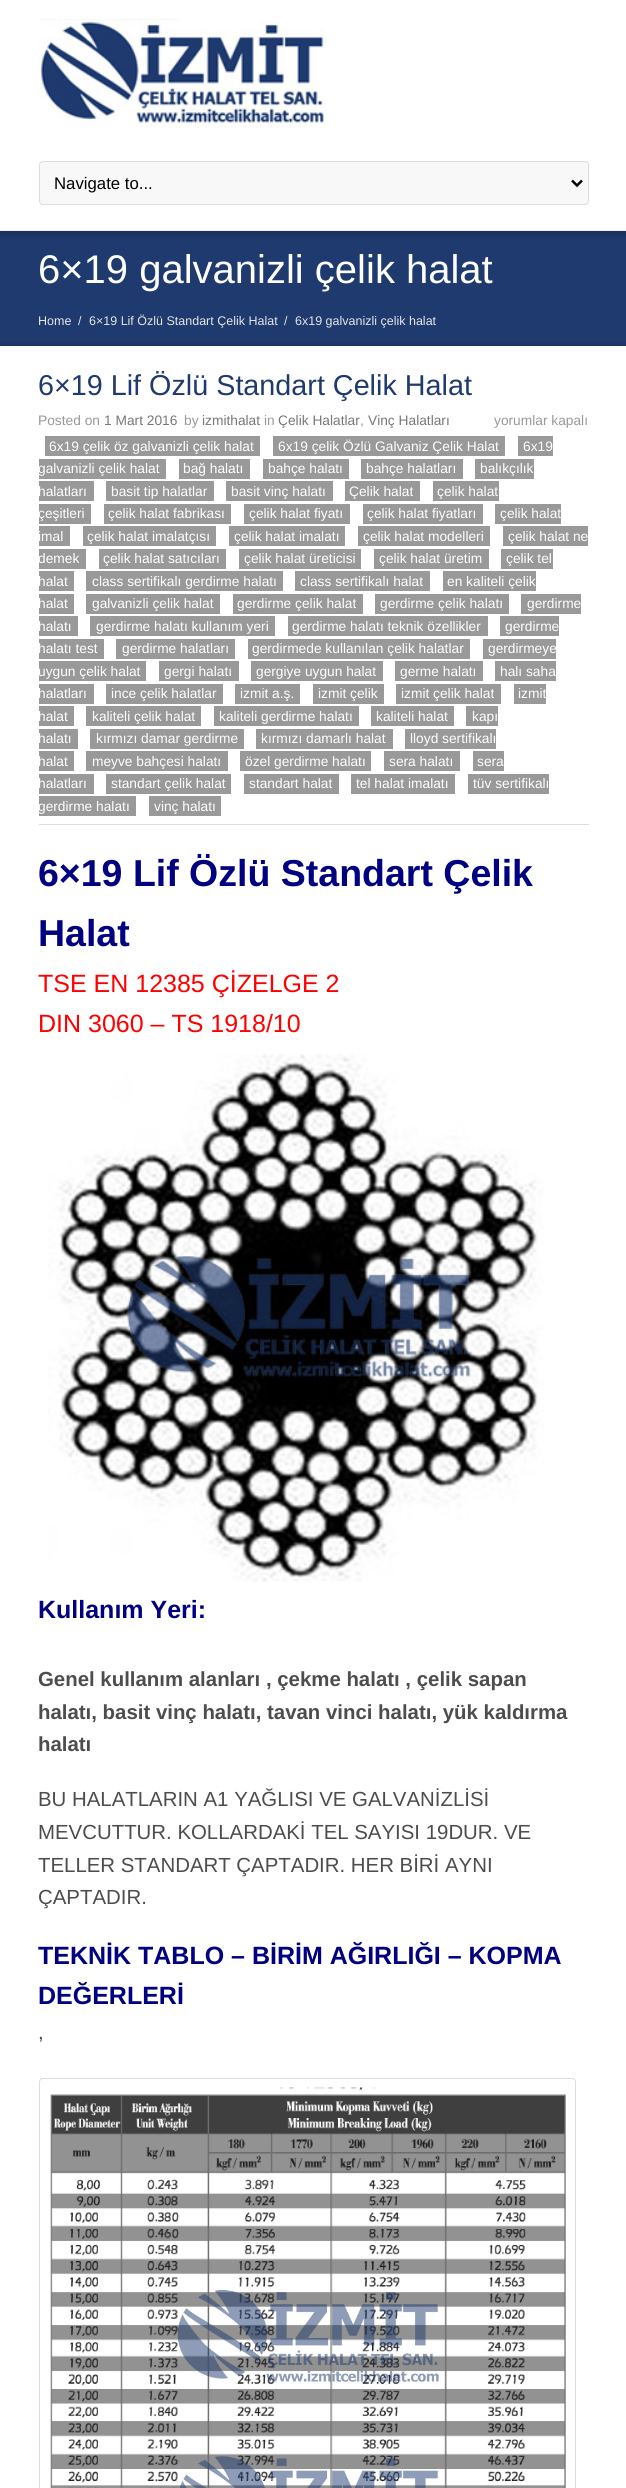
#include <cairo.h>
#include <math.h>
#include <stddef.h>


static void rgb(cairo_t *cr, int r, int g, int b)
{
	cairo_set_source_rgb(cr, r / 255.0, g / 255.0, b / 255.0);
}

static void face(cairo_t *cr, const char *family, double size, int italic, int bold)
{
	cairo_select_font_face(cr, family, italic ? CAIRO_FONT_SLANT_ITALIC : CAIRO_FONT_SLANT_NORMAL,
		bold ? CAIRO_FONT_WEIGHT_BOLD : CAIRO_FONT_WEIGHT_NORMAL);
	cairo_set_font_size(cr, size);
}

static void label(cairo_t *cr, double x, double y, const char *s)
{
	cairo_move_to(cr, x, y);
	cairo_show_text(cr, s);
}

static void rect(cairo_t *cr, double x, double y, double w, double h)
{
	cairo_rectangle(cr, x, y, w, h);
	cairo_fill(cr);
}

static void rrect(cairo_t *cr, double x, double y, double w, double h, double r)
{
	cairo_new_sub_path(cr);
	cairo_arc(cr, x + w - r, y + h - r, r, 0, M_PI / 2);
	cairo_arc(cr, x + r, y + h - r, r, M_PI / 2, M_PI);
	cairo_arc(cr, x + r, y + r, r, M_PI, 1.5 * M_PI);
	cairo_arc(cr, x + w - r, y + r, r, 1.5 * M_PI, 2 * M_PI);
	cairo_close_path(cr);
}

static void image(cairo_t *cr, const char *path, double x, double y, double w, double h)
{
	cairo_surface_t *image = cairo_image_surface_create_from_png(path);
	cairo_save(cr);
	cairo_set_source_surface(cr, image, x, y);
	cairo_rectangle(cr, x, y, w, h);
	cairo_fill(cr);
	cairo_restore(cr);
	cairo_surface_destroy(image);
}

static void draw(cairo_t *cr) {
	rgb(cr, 255, 255, 255);
	cairo_paint(cr);
	rgb(cr, 238, 238, 238);
	rect(cr, 0, 230, 626, 1);
	image(cr, "image0.png", 39, 19, 288, 109);
	rgb(cr, 248, 248, 248);
	rrect(cr, 39.5, 161.5, 549, 43, 3.5);
	cairo_fill_preserve(cr);
	rgb(cr, 221, 221, 221);
	cairo_set_line_width(cr, 1);
	cairo_stroke(cr);
	cairo_new_path(cr);
	cairo_move_to(cr, 572, 180.5);
	cairo_line_to(cr, 577, 185.5);
	cairo_line_to(cr, 582, 180.5);
	rgb(cr, 0, 0, 0);
	cairo_set_line_width(cr, 2.5);
	cairo_stroke(cr);
	face(cr, "Liberation Sans", 16.75, 0, 0);
	label(cr, 54, 189, "Navigate to...");
	rgb(cr, 31, 58, 111);
	rect(cr, 0, 231, 626, 115);
	image(cr, "image1.png", 0, 231, 626, 8);
	face(cr, "Liberation Sans", 40, 0, 0);
	rgb(cr, 255, 255, 255);
	label(cr, 38, 283, "6×19 galvanizli çelik halat");
	face(cr, "Liberation Sans", 12.5, 0, 0);
	rgb(cr, 230, 230, 230);
	label(cr, 38, 325, "Home");
	label(cr, 78, 325, "/");
	label(cr, 89, 325, "6×19 Lif Özlü Standart Çelik Halat");
	label(cr, 284, 325, "/");
	label(cr, 295, 325, "6x19 galvanizli çelik halat");
	image(cr, "image2.png", 0, 341, 626, 6);
	face(cr, "Liberation Sans", 28.75, 0, 0);
	rgb(cr, 31, 58, 111);
	label(cr, 38, 395, "6×19 Lif Özlü Standart Çelik Halat");
	rgb(cr, 221, 221, 221);
	rect(cr, 39, 824, 550, 1);
	face(cr, "Liberation Sans", 13.75, 0, 0);
	rgb(cr, 153, 153, 153);
	label(cr, 38, 425, "Posted on");
	rgb(cr, 119, 119, 119);
	label(cr, 104, 425, "1 Mart 2016");
	rgb(cr, 153, 153, 153);
	label(cr, 184, 425, "by");
	rgb(cr, 119, 119, 119);
	label(cr, 202, 425, "izmithalat");
	rgb(cr, 153, 153, 153);
	label(cr, 264, 425, "in");
	rgb(cr, 119, 119, 119);
	label(cr, 278, 425, "Çelik Halatlar");
	rgb(cr, 153, 153, 153);
	label(cr, 360, 425, ",");
	rgb(cr, 119, 119, 119);
	label(cr, 368, 425, "Vinç Halatları");
	rgb(cr, 153, 153, 153);
	label(cr, 494, 425, "yorumlar kapalı");
	rect(cr, 45, 436, 215, 20);
	rgb(cr, 255, 255, 255);
	label(cr, 49, 451, "6x19 çelik öz galvanizli çelik halat");
	rgb(cr, 153, 153, 153);
	rect(cr, 273, 436, 232, 20);
	rgb(cr, 255, 255, 255);
	label(cr, 278, 451, "6x19 çelik Özlü Galvaniz Çelik Halat");
	rgb(cr, 153, 153, 153);
	rect(cr, 518, 436, 35, 20);
	rgb(cr, 255, 255, 255);
	label(cr, 523, 451, "6x19");
	rgb(cr, 153, 153, 153);
	rect(cr, 39, 459, 127, 20);
	rgb(cr, 255, 255, 255);
	label(cr, 38, 473, "galvanizli çelik halat");
	rgb(cr, 153, 153, 153);
	rect(cr, 179, 459, 71, 20);
	rgb(cr, 255, 255, 255);
	label(cr, 183, 473, "bağ halatı");
	rgb(cr, 153, 153, 153);
	rect(cr, 263, 459, 86, 20);
	rgb(cr, 255, 255, 255);
	label(cr, 268, 473, "bahçe halatı");
	rgb(cr, 153, 153, 153);
	rect(cr, 361, 459, 102, 20);
	rgb(cr, 255, 255, 255);
	label(cr, 366, 473, "bahçe halatları");
	rgb(cr, 153, 153, 153);
	rect(cr, 475, 459, 59, 20);
	rgb(cr, 255, 255, 255);
	label(cr, 480, 473, "balıkçılık");
	rgb(cr, 153, 153, 153);
	rect(cr, 39, 481, 55, 20);
	rgb(cr, 255, 255, 255);
	label(cr, 38, 496, "halatları");
	rgb(cr, 153, 153, 153);
	rect(cr, 106, 481, 108, 20);
	rgb(cr, 255, 255, 255);
	label(cr, 111, 496, "basit tip halatlar");
	rgb(cr, 153, 153, 153);
	rect(cr, 226, 481, 107, 20);
	rgb(cr, 255, 255, 255);
	label(cr, 231, 496, "basit vinç halatı");
	rgb(cr, 153, 153, 153);
	rect(cr, 345, 481, 75, 20);
	rgb(cr, 255, 255, 255);
	label(cr, 349, 496, "Çelik halat");
	rgb(cr, 153, 153, 153);
	rect(cr, 433, 481, 66, 20);
	rgb(cr, 255, 255, 255);
	label(cr, 437, 496, "çelik halat");
	rgb(cr, 153, 153, 153);
	rect(cr, 39, 504, 52, 20);
	rgb(cr, 255, 255, 255);
	label(cr, 38, 518, "çeşitleri");
	rgb(cr, 153, 153, 153);
	rect(cr, 104, 504, 127, 20);
	rgb(cr, 255, 255, 255);
	label(cr, 108, 518, "çelik halat fabrikası");
	rgb(cr, 153, 153, 153);
	rect(cr, 244, 504, 106, 20);
	rgb(cr, 255, 255, 255);
	label(cr, 249, 518, "çelik halat fiyatı");
	rgb(cr, 153, 153, 153);
	rect(cr, 363, 504, 120, 20);
	rgb(cr, 255, 255, 255);
	label(cr, 367, 518, "çelik halat fiyatları");
	rgb(cr, 153, 153, 153);
	rect(cr, 495, 504, 66, 20);
	rgb(cr, 255, 255, 255);
	label(cr, 500, 518, "çelik halat");
	rgb(cr, 153, 153, 153);
	rect(cr, 39, 526, 31, 20);
	rgb(cr, 255, 255, 255);
	label(cr, 38, 541, "imal");
	rgb(cr, 153, 153, 153);
	rect(cr, 83, 526, 133, 20);
	rgb(cr, 255, 255, 255);
	label(cr, 87, 541, "çelik halat imalatçısı");
	rgb(cr, 153, 153, 153);
	rect(cr, 229, 526, 116, 20);
	rgb(cr, 255, 255, 255);
	label(cr, 234, 541, "çelik halat imalatı");
	rgb(cr, 153, 153, 153);
	rect(cr, 358, 526, 132, 20);
	rgb(cr, 255, 255, 255);
	label(cr, 363, 541, "çelik halat modelleri");
	rgb(cr, 153, 153, 153);
	rect(cr, 503, 526, 85, 20);
	rgb(cr, 255, 255, 255);
	label(cr, 508, 541, "çelik halat ne");
	rgb(cr, 153, 153, 153);
	rect(cr, 39, 549, 47, 20);
	rgb(cr, 255, 255, 255);
	label(cr, 38, 563, "demek");
	rgb(cr, 153, 153, 153);
	rect(cr, 99, 549, 127, 20);
	rgb(cr, 255, 255, 255);
	label(cr, 103, 563, "çelik halat satıcıları");
	rgb(cr, 153, 153, 153);
	rect(cr, 239, 549, 122, 20);
	rgb(cr, 255, 255, 255);
	label(cr, 244, 563, "çelik halat üreticisi");
	rgb(cr, 153, 153, 153);
	rect(cr, 374, 549, 115, 20);
	rgb(cr, 255, 255, 255);
	label(cr, 379, 563, "çelik halat üretim");
	rgb(cr, 153, 153, 153);
	rect(cr, 501, 549, 52, 20);
	rgb(cr, 255, 255, 255);
	label(cr, 506, 563, "çelik tel");
	rgb(cr, 153, 153, 153);
	rect(cr, 39, 571, 35, 20);
	rgb(cr, 255, 255, 255);
	label(cr, 38, 586, "halat");
	rgb(cr, 153, 153, 153);
	rect(cr, 86, 571, 197, 20);
	rgb(cr, 255, 255, 255);
	label(cr, 92, 586, "class sertifikalı gerdirme halatı");
	rgb(cr, 153, 153, 153);
	rect(cr, 295, 571, 135, 20);
	rgb(cr, 255, 255, 255);
	label(cr, 300, 586, "class sertifikalı halat");
	rgb(cr, 153, 153, 153);
	rect(cr, 443, 571, 93, 20);
	rgb(cr, 255, 255, 255);
	label(cr, 447, 586, "en kaliteli çelik");
	rgb(cr, 153, 153, 153);
	rect(cr, 39, 594, 35, 20);
	rgb(cr, 255, 255, 255);
	label(cr, 38, 608, "halat");
	rgb(cr, 153, 153, 153);
	rect(cr, 86, 594, 134, 20);
	rgb(cr, 255, 255, 255);
	label(cr, 92, 608, "galvanizli çelik halat");
	rgb(cr, 153, 153, 153);
	rect(cr, 233, 594, 130, 20);
	rgb(cr, 255, 255, 255);
	label(cr, 237, 608, "gerdirme çelik halat");
	rgb(cr, 153, 153, 153);
	rect(cr, 375, 594, 134, 20);
	rgb(cr, 255, 255, 255);
	label(cr, 380, 608, "gerdirme çelik halatı");
	rgb(cr, 153, 153, 153);
	rect(cr, 521, 594, 60, 20);
	rgb(cr, 255, 255, 255);
	label(cr, 527, 608, "gerdirme");
	rgb(cr, 153, 153, 153);
	rect(cr, 39, 616, 39, 20);
	rgb(cr, 255, 255, 255);
	label(cr, 38, 631, "halatı");
	rgb(cr, 153, 153, 153);
	rect(cr, 90, 616, 185, 20);
	rgb(cr, 255, 255, 255);
	label(cr, 96, 631, "gerdirme halatı kullanım yeri");
	rgb(cr, 153, 153, 153);
	rect(cr, 288, 616, 200, 20);
	rgb(cr, 255, 255, 255);
	label(cr, 292, 631, "gerdirme halatı teknik özellikler");
	rgb(cr, 153, 153, 153);
	rect(cr, 500, 616, 59, 20);
	rgb(cr, 255, 255, 255);
	label(cr, 505, 631, "gerdirme");
	rgb(cr, 153, 153, 153);
	rect(cr, 39, 639, 65, 20);
	rgb(cr, 255, 255, 255);
	label(cr, 38, 653, "halatı test");
	rgb(cr, 153, 153, 153);
	rect(cr, 116, 639, 119, 20);
	rgb(cr, 255, 255, 255);
	label(cr, 122, 653, "gerdirme halatları");
	rgb(cr, 153, 153, 153);
	rect(cr, 248, 639, 222, 20);
	rgb(cr, 255, 255, 255);
	label(cr, 252, 653, "gerdirmede kullanılan çelik halatlar");
	rgb(cr, 153, 153, 153);
	rect(cr, 483, 639, 73, 20);
	rgb(cr, 255, 255, 255);
	label(cr, 488, 653, "gerdirmeye");
	rgb(cr, 153, 153, 153);
	rect(cr, 39, 661, 107, 20);
	rgb(cr, 255, 255, 255);
	label(cr, 38, 676, "uygun çelik halat");
	rgb(cr, 153, 153, 153);
	rect(cr, 159, 661, 80, 20);
	rgb(cr, 255, 255, 255);
	label(cr, 164, 676, "gergi halatı");
	rgb(cr, 153, 153, 153);
	rect(cr, 251, 661, 132, 20);
	rgb(cr, 255, 255, 255);
	label(cr, 256, 676, "gergiye uygun halat");
	rgb(cr, 153, 153, 153);
	rect(cr, 395, 661, 88, 20);
	rgb(cr, 255, 255, 255);
	label(cr, 400, 676, "germe halatı");
	rgb(cr, 153, 153, 153);
	rect(cr, 495, 661, 61, 20);
	rgb(cr, 255, 255, 255);
	label(cr, 500, 676, "halı saha");
	rgb(cr, 153, 153, 153);
	rect(cr, 39, 684, 55, 20);
	rgb(cr, 255, 255, 255);
	label(cr, 38, 698, "halatları");
	rgb(cr, 153, 153, 153);
	rect(cr, 106, 684, 117, 20);
	rgb(cr, 255, 255, 255);
	label(cr, 111, 698, "ince çelik halatlar");
	rgb(cr, 153, 153, 153);
	rect(cr, 235, 684, 65, 20);
	rgb(cr, 255, 255, 255);
	label(cr, 240, 698, "izmit a.ş.");
	rgb(cr, 153, 153, 153);
	rect(cr, 313, 684, 71, 20);
	rgb(cr, 255, 255, 255);
	label(cr, 318, 698, "izmit çelik");
	rgb(cr, 153, 153, 153);
	rect(cr, 396, 684, 105, 20);
	rgb(cr, 255, 255, 255);
	label(cr, 401, 698, "izmit çelik halat");
	rgb(cr, 153, 153, 153);
	rect(cr, 514, 684, 32, 20);
	rgb(cr, 255, 255, 255);
	label(cr, 518, 698, "izmit");
	rgb(cr, 153, 153, 153);
	rect(cr, 39, 706, 35, 20);
	rgb(cr, 255, 255, 255);
	label(cr, 38, 721, "halat");
	rgb(cr, 153, 153, 153);
	rect(cr, 86, 706, 115, 20);
	rgb(cr, 255, 255, 255);
	label(cr, 92, 721, "kaliteli çelik halat");
	rgb(cr, 153, 153, 153);
	rect(cr, 214, 706, 145, 20);
	rgb(cr, 255, 255, 255);
	label(cr, 219, 721, "kaliteli gerdirme halatı");
	rgb(cr, 153, 153, 153);
	rect(cr, 371, 706, 83, 20);
	rgb(cr, 255, 255, 255);
	label(cr, 376, 721, "kaliteli halat");
	rgb(cr, 153, 153, 153);
	rect(cr, 466, 706, 32, 20);
	rgb(cr, 255, 255, 255);
	label(cr, 472, 721, "kapı");
	rgb(cr, 153, 153, 153);
	rect(cr, 39, 729, 39, 20);
	rgb(cr, 255, 255, 255);
	label(cr, 38, 743, "halatı");
	rgb(cr, 153, 153, 153);
	rect(cr, 90, 729, 154, 20);
	rgb(cr, 255, 255, 255);
	label(cr, 96, 743, "kırmızı damar gerdirme");
	rgb(cr, 153, 153, 153);
	rect(cr, 256, 729, 137, 20);
	rgb(cr, 255, 255, 255);
	label(cr, 261, 743, "kırmızı damarlı halat");
	rgb(cr, 153, 153, 153);
	rect(cr, 405, 729, 91, 20);
	rgb(cr, 255, 255, 255);
	label(cr, 410, 743, "lloyd sertifikalı");
	rgb(cr, 153, 153, 153);
	rect(cr, 39, 751, 35, 20);
	rgb(cr, 255, 255, 255);
	label(cr, 38, 766, "halat");
	rgb(cr, 153, 153, 153);
	rect(cr, 86, 751, 142, 20);
	rgb(cr, 255, 255, 255);
	label(cr, 92, 766, "meyve bahçesi halatı");
	rgb(cr, 153, 153, 153);
	rect(cr, 240, 751, 131, 20);
	rgb(cr, 255, 255, 255);
	label(cr, 245, 766, "özel gerdirme halatı");
	rgb(cr, 153, 153, 153);
	rect(cr, 384, 751, 76, 20);
	rgb(cr, 255, 255, 255);
	label(cr, 389, 766, "sera halatı");
	rgb(cr, 153, 153, 153);
	rect(cr, 473, 751, 31, 20);
	rgb(cr, 255, 255, 255);
	label(cr, 477, 766, "sera");
	rgb(cr, 153, 153, 153);
	rect(cr, 39, 774, 55, 20);
	rgb(cr, 255, 255, 255);
	label(cr, 38, 788, "halatları");
	rgb(cr, 153, 153, 153);
	rect(cr, 106, 774, 125, 20);
	rgb(cr, 255, 255, 255);
	label(cr, 111, 788, "standart çelik halat");
	rgb(cr, 153, 153, 153);
	rect(cr, 244, 774, 95, 20);
	rgb(cr, 255, 255, 255);
	label(cr, 249, 788, "standart halat");
	rgb(cr, 153, 153, 153);
	rect(cr, 351, 774, 104, 20);
	rgb(cr, 255, 255, 255);
	label(cr, 356, 788, "tel halat imalatı");
	rgb(cr, 153, 153, 153);
	rect(cr, 468, 774, 81, 20);
	rgb(cr, 255, 255, 255);
	label(cr, 473, 788, "tüv sertifikalı");
	rgb(cr, 153, 153, 153);
	rect(cr, 39, 796, 97, 20);
	rgb(cr, 255, 255, 255);
	label(cr, 38, 811, "gerdirme halatı");
	rgb(cr, 153, 153, 153);
	rect(cr, 149, 796, 72, 20);
	rgb(cr, 255, 255, 255);
	label(cr, 154, 811, "vinç halatı");
	face(cr, "Liberation Sans", 37.5, 0, 1);
	rgb(cr, 0, 0, 128);
	label(cr, 38, 886, "6×19 Lif Özlü Standart Çelik");
	label(cr, 38, 946, "Halat");
	face(cr, "Liberation Sans", 25, 0, 0);
	rgb(cr, 255, 0, 0);
	label(cr, 38, 992, "TSE EN 12385 ÇİZELGE 2");
	label(cr, 38, 1032, "DIN 3060 – TS 1918/10");
	image(cr, "image3.png", 48, 1054, 496, 528);
	face(cr, "Liberation Sans", 25, 0, 1);
	rgb(cr, 0, 0, 128);
	label(cr, 38, 1618, "Kullanım Yeri:");
	face(cr, "Liberation Sans", 20.4, 0, 1);
	rgb(cr, 77, 77, 77);
	label(cr, 38, 1686, "Genel kullanım alanları , çekme halatı , çelik sapan");
	label(cr, 38, 1719, "halatı, basit vinç halatı, tavan vinci halatı, yük kaldırma");
	label(cr, 38, 1751, "halatı");
	face(cr, "Liberation Sans", 20.4, 0, 0);
	label(cr, 38, 1806, "BU HALATLARIN A1 YAĞLISI VE GALVANİZLİSİ");
	label(cr, 38, 1839, "MEVCUTTUR. KOLLARDAKİ TEL SAYISI 19DUR. VE");
	label(cr, 38, 1872, "TELLER STANDART ÇAPTADIR. HER BİRİ AYNI");
	label(cr, 38, 1904, "ÇAPTADIR.");
	face(cr, "Liberation Sans", 25, 0, 1);
	rgb(cr, 0, 0, 128);
	label(cr, 38, 1964, "TEKNİK TABLO – BİRİM AĞIRLIĞI – KOPMA");
	label(cr, 38, 2004, "DEĞERLERİ");
	face(cr, "Liberation Sans", 20.4, 0, 0);
	rgb(cr, 77, 77, 77);
	label(cr, 38, 2039, ",");
	rrect(cr, 39.5, 2078.5, 536, 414, 3.5);
	rgb(cr, 221, 221, 221);
	cairo_set_line_width(cr, 1);
	cairo_stroke(cr);
	image(cr, "image4.png", 50, 2087, 516, 401);
}

int main(void) {
	cairo_surface_t *surface = cairo_image_surface_create(CAIRO_FORMAT_RGB24, 626, 2488);
	cairo_t *cr = cairo_create(surface);
	cairo_font_options_t *options = cairo_font_options_create();
	cairo_font_options_set_hint_metrics(options, CAIRO_HINT_METRICS_OFF);
	cairo_font_options_set_hint_style(options, CAIRO_HINT_STYLE_NONE);
	cairo_set_font_options(cr, options);
	cairo_set_miter_limit(cr, 4);
	draw(cr);
	cairo_surface_write_to_png(surface, "render.png");
	cairo_font_options_destroy(options);
	cairo_destroy(cr);
	cairo_surface_destroy(surface);
	return 0;
}
